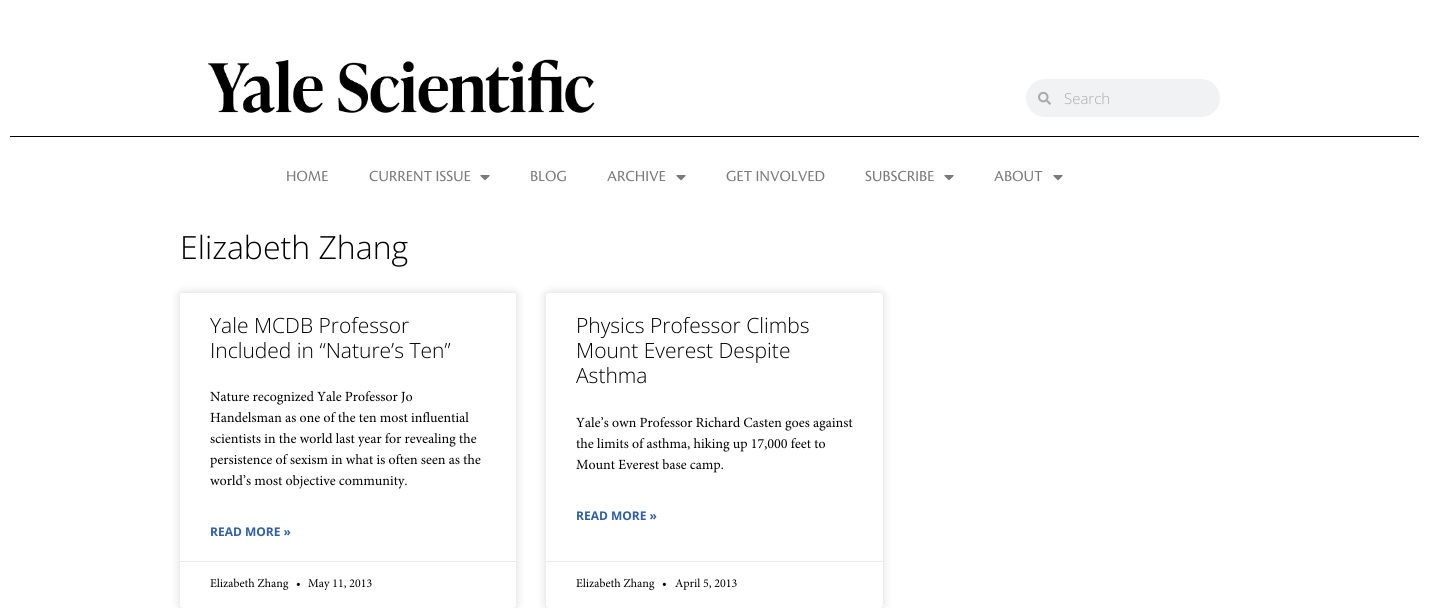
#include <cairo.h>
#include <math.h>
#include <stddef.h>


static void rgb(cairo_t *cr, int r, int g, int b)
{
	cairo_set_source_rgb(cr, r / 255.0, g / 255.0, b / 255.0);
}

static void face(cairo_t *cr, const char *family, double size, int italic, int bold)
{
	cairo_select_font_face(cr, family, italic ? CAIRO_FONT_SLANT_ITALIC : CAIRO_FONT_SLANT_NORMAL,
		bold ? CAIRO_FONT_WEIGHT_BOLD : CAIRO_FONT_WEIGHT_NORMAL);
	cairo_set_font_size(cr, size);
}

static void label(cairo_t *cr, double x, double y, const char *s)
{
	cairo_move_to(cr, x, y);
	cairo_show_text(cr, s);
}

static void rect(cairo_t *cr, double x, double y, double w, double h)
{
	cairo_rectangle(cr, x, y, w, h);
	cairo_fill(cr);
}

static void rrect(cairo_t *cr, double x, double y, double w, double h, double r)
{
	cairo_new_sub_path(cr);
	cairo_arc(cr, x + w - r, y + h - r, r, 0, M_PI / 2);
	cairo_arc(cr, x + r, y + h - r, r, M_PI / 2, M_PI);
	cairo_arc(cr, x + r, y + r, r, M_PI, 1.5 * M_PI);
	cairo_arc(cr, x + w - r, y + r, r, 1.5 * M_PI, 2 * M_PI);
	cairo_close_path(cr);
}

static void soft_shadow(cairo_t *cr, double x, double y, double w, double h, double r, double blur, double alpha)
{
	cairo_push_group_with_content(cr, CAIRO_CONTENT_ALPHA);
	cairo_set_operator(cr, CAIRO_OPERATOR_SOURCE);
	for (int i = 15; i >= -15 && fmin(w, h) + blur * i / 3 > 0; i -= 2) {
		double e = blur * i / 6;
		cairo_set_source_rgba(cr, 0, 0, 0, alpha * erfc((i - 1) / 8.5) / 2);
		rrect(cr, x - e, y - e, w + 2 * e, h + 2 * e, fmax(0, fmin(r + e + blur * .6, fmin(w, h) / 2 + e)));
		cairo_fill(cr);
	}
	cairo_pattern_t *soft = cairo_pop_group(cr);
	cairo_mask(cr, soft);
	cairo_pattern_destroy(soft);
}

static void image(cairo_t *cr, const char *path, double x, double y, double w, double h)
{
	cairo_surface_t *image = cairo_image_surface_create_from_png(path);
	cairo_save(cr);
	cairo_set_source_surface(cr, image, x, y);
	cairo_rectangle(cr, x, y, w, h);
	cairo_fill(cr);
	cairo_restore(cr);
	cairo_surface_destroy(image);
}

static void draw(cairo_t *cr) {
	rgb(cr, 255, 255, 255);
	cairo_paint(cr);
	image(cr, "image0.png", 208, 59, 387, 54);
	rgb(cr, 241, 242, 243);
	rrect(cr, 1026, 79, 194, 38, 19);
	cairo_fill(cr);
	image(cr, "image1.png", 1038, 91, 13, 14);
	face(cr, "Open Sans Light", 15, 0, 0);
	rgb(cr, 170, 170, 170);
	label(cr, 1064, 104, "Search");
	rgb(cr, 0, 0, 0);
	rect(cr, 10, 136, 1409, 1);
	image(cr, "image2.png", 287, 170, 41, 12);
	image(cr, "image3.png", 369, 170, 102, 12);
	image(cr, "image4.png", 480, 175, 10, 6);
	image(cr, "image5.png", 531, 170, 35, 12);
	image(cr, "image6.png", 607, 170, 59, 12);
	image(cr, "image4.png", 676, 175, 10, 6);
	image(cr, "image7.png", 726, 170, 99, 12);
	image(cr, "image8.png", 865, 170, 69, 12);
	image(cr, "image4.png", 944, 175, 10, 6);
	image(cr, "image9.png", 994, 170, 49, 12);
	image(cr, "image4.png", 1053, 175, 10, 6);
	face(cr, "Open Sans Light", 32, 0, 0);
	label(cr, 180, 259, "Elizabeth Zhang");
	rgb(cr, 0, 0, 0);
	soft_shadow(cr, 180, 293, 336, 315, 3, 5, 0.15);
	rgb(cr, 255, 255, 255);
	rrect(cr, 180, 293, 336, 315, 3);
	cairo_fill(cr);
	face(cr, "Open Sans Light", 21, 0, 0);
	rgb(cr, 0, 0, 0);
	label(cr, 210, 333, "Yale MCDB Professor");
	label(cr, 210, 358, "Included in “Nature’s Ten”");
	image(cr, "image10.png", 210, 391, 203, 14);
	image(cr, "image11.png", 210, 412, 259, 11);
	image(cr, "image12.png", 210, 433, 267, 14);
	image(cr, "image13.png", 210, 454, 271, 14);
	image(cr, "image14.png", 210, 475, 197, 14);
	face(cr, "Open Sans", 12, 0, 1);
	rgb(cr, 49, 95, 164);
	label(cr, 210, 536, "READ MORE »");
	rgb(cr, 234, 234, 234);
	rect(cr, 180, 561, 336, 1);
	image(cr, "image15.png", 210, 578, 79, 13);
	image(cr, "image16.png", 296, 582, 4, 4);
	image(cr, "image17.png", 308, 579, 64, 11);
	rgb(cr, 0, 0, 0);
	soft_shadow(cr, 546, 293, 337, 315, 3, 5, 0.15);
	rgb(cr, 255, 255, 255);
	rrect(cr, 546, 293, 337, 315, 3);
	cairo_fill(cr);
	face(cr, "Open Sans Light", 21, 0, 0);
	rgb(cr, 0, 0, 0);
	label(cr, 576, 333, "Physics Professor Climbs");
	label(cr, 576, 358, "Mount Everest Despite");
	label(cr, 576, 383, "Asthma");
	image(cr, "image18.png", 576, 417, 277, 14);
	image(cr, "image19.png", 576, 438, 249, 14);
	image(cr, "image20.png", 576, 459, 147, 14);
	face(cr, "Open Sans", 12, 0, 1);
	rgb(cr, 49, 95, 164);
	label(cr, 576, 520, "READ MORE »");
	rgb(cr, 234, 234, 234);
	rect(cr, 546, 561, 337, 1);
	image(cr, "image15.png", 576, 578, 79, 13);
	image(cr, "image16.png", 662, 582, 4, 4);
	image(cr, "image21.png", 675, 578, 62, 12);
}

int main(void) {
	cairo_surface_t *surface = cairo_image_surface_create(CAIRO_FORMAT_RGB24, 1429, 608);
	cairo_t *cr = cairo_create(surface);
	cairo_font_options_t *options = cairo_font_options_create();
	cairo_font_options_set_hint_metrics(options, CAIRO_HINT_METRICS_OFF);
	cairo_font_options_set_hint_style(options, CAIRO_HINT_STYLE_NONE);
	cairo_set_font_options(cr, options);
	cairo_set_miter_limit(cr, 4);
	draw(cr);
	cairo_surface_write_to_png(surface, "render.png");
	cairo_font_options_destroy(options);
	cairo_destroy(cr);
	cairo_surface_destroy(surface);
	return 0;
}
